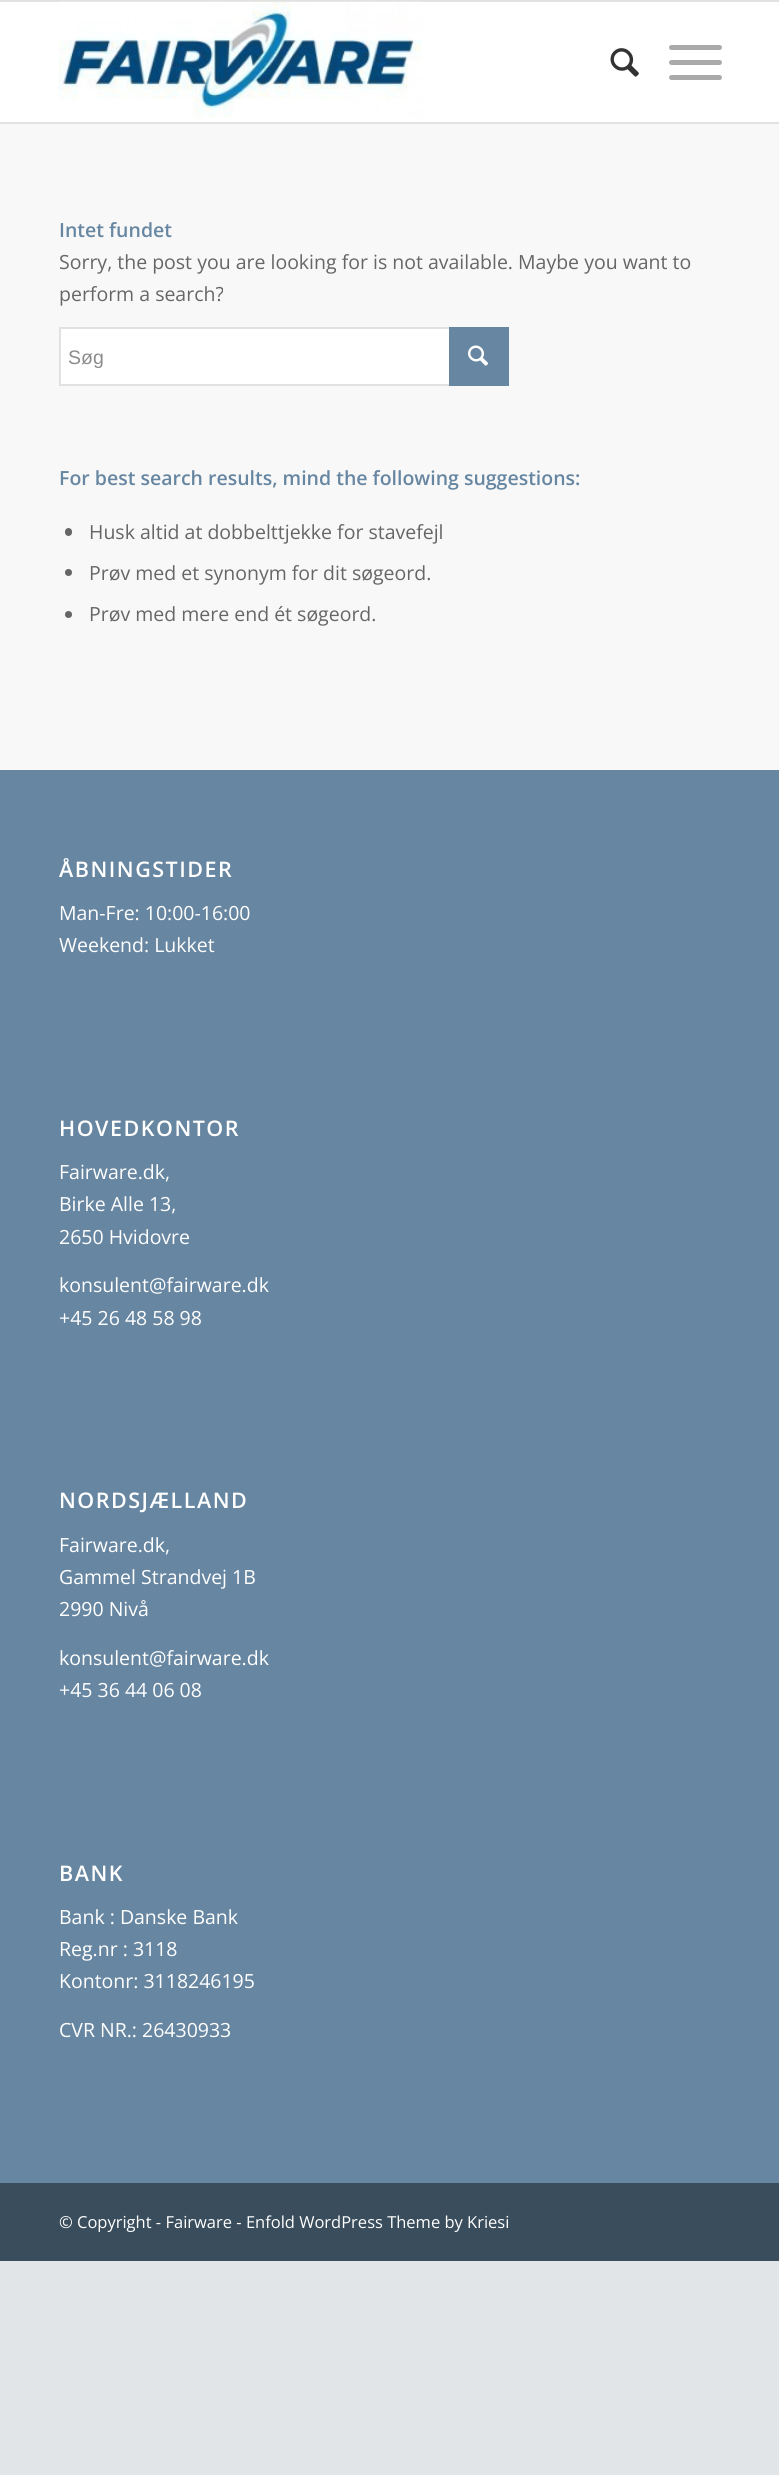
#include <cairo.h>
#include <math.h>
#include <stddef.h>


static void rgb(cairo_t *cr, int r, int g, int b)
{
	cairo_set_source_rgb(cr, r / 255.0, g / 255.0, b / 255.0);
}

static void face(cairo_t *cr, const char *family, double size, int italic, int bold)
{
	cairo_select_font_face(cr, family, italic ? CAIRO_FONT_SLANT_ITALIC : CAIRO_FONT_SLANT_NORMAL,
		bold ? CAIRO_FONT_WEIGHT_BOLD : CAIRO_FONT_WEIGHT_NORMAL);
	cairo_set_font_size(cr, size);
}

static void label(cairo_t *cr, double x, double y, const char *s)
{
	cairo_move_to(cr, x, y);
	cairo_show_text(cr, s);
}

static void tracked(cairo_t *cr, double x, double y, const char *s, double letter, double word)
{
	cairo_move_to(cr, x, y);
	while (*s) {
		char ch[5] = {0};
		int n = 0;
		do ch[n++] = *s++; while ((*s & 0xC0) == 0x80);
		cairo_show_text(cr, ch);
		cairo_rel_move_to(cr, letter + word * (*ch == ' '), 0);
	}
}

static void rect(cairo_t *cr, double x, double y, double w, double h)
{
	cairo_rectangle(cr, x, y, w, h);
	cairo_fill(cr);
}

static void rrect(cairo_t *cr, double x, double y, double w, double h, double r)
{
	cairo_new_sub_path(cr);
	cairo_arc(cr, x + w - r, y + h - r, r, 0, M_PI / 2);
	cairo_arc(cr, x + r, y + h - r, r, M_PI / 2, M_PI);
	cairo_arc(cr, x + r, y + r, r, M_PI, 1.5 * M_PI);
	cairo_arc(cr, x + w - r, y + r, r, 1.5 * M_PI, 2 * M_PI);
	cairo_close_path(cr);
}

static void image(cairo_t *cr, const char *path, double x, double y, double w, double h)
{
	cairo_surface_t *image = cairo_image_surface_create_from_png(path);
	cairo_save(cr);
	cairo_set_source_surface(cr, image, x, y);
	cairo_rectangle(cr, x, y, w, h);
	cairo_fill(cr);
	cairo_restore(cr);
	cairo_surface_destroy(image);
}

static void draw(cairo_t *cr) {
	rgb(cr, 225, 229, 232);
	cairo_paint(cr);
	rgb(cr, 225, 225, 225);
	rect(cr, 0, 0, 779, 2);
	rect(cr, 0, 122, 779, 2);
	rgb(cr, 255, 255, 255);
	rect(cr, 0, 2, 779, 120);
	image(cr, "image0.png", 58, 1, 364, 117);
	image(cr, "image1.png", 610, 48, 29, 29);
	rgb(cr, 170, 170, 170);
	rrect(cr, 669, 60, 53, 5, 2.5);
	cairo_fill(cr);
	rrect(cr, 669, 45, 53, 5, 2.5);
	cairo_fill(cr);
	rrect(cr, 669, 75, 53, 5, 2.5);
	cairo_fill(cr);
	rgb(cr, 248, 248, 248);
	rect(cr, 0, 124, 779, 646);
	face(cr, "Open Sans SemiBold", 19.5, 0, 0);
	rgb(cr, 103, 134, 161);
	label(cr, 59, 237, "Intet fundet");
	face(cr, "Open Sans", 19.5, 0, 0);
	rgb(cr, 102, 102, 102);
	label(cr, 59, 269, "Sorry, the post you are looking for is not available. Maybe you want to");
	label(cr, 59, 301, "perform a search?");
	rgb(cr, 255, 255, 255);
	rect(cr, 61, 329, 388, 55);
	cairo_rectangle(cr, 60, 328, 448, 57);
	rgb(cr, 225, 225, 225);
	cairo_stroke(cr);
	face(cr, "Liberation Sans", 19.5, 0, 0);
	rgb(cr, 141, 141, 141);
	label(cr, 68, 364, "Søg");
	rgb(cr, 103, 134, 161);
	rect(cr, 449, 327, 60, 59);
	image(cr, "image2.png", 468, 345, 21, 21);
	face(cr, "Open Sans SemiBold", 19.5, 0, 0);
	label(cr, 59, 485, "For best search results, mind the following suggestions:");
	rgb(cr, 102, 102, 102);
	rrect(cr, 65, 528, 7, 8, 3.5);
	cairo_fill(cr);
	face(cr, "Open Sans", 19.5, 0, 0);
	label(cr, 89, 539, "Husk altid at dobbelttjekke for stavefejl");
	cairo_new_path(cr);
	cairo_arc(cr, 68.5, 572.5, 3.5, 0, 2 * M_PI);
	cairo_fill(cr);
	label(cr, 89, 580, "Prøv med et synonym for dit søgeord.");
	cairo_new_path(cr);
	cairo_arc(cr, 68.5, 614.5, 3.5, 0, 2 * M_PI);
	cairo_fill(cr);
	label(cr, 89, 621, "Prøv med mere end ét søgeord.");
	rgb(cr, 103, 134, 161);
	rect(cr, 0, 770, 779, 1413);
	face(cr, "Open Sans SemiBold", 21.5, 0, 0);
	rgb(cr, 255, 255, 255);
	tracked(cr, 59, 877, "ÅBNINGSTIDER", 1.5, 0);
	face(cr, "Open Sans", 19.5, 0, 0);
	label(cr, 59, 920, "Man-Fre: 10:00-16:00");
	label(cr, 59, 952, "Weekend: Lukket");
	face(cr, "Open Sans SemiBold", 21.5, 0, 0);
	tracked(cr, 59, 1136, "HOVEDKONTOR", 1.5, 0);
	face(cr, "Open Sans", 19.5, 0, 0);
	label(cr, 59, 1179, "Fairware.dk,");
	label(cr, 59, 1211, "Birke Alle 13,");
	label(cr, 59, 1244, "2650 Hvidovre");
	label(cr, 59, 1292, "konsulent@fairware.dk");
	label(cr, 59, 1325, "+45 26 48 58 98");
	face(cr, "Open Sans SemiBold", 21.5, 0, 0);
	tracked(cr, 59, 1508, "NORDSJÆLLAND", 1.5, 0);
	face(cr, "Open Sans", 19.5, 0, 0);
	label(cr, 59, 1552, "Fairware.dk,");
	label(cr, 59, 1584, "Gammel Strandvej 1B");
	label(cr, 59, 1616, "2990 Nivå");
	label(cr, 59, 1665, "konsulent@fairware.dk");
	label(cr, 59, 1697, "+45 36 44 06 08");
	face(cr, "Open Sans SemiBold", 21.5, 0, 0);
	tracked(cr, 59, 1881, "BANK", 1.5, 0);
	face(cr, "Open Sans", 19.5, 0, 0);
	label(cr, 59, 1924, "Bank : Danske Bank");
	label(cr, 59, 1956, "Reg.nr : 3118");
	label(cr, 59, 1988, "Kontonr: 3118246195");
	label(cr, 59, 2037, "CVR NR.: 26430933");
	rgb(cr, 58, 77, 92);
	rect(cr, 0, 2183, 779, 78);
	face(cr, "Open Sans", 16.5, 0, 0);
	rgb(cr, 255, 255, 255);
	label(cr, 59, 2228, "© Copyright - Fairware - Enfold WordPress Theme by Kriesi");
}

int main(void) {
	cairo_surface_t *surface = cairo_image_surface_create(CAIRO_FORMAT_RGB24, 779, 2475);
	cairo_t *cr = cairo_create(surface);
	cairo_font_options_t *options = cairo_font_options_create();
	cairo_font_options_set_hint_metrics(options, CAIRO_HINT_METRICS_OFF);
	cairo_font_options_set_hint_style(options, CAIRO_HINT_STYLE_NONE);
	cairo_set_font_options(cr, options);
	cairo_set_miter_limit(cr, 4);
	draw(cr);
	cairo_surface_write_to_png(surface, "render.png");
	cairo_font_options_destroy(options);
	cairo_destroy(cr);
	cairo_surface_destroy(surface);
	return 0;
}
